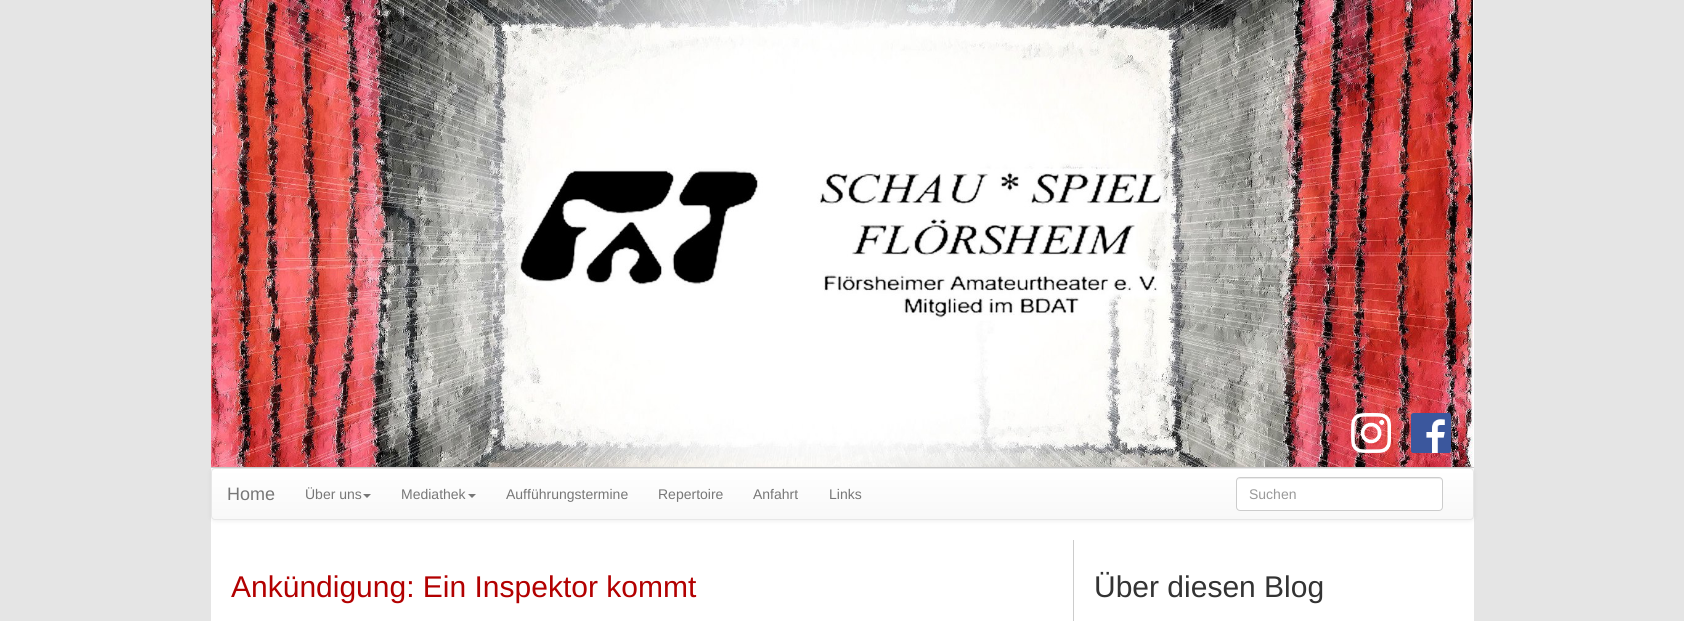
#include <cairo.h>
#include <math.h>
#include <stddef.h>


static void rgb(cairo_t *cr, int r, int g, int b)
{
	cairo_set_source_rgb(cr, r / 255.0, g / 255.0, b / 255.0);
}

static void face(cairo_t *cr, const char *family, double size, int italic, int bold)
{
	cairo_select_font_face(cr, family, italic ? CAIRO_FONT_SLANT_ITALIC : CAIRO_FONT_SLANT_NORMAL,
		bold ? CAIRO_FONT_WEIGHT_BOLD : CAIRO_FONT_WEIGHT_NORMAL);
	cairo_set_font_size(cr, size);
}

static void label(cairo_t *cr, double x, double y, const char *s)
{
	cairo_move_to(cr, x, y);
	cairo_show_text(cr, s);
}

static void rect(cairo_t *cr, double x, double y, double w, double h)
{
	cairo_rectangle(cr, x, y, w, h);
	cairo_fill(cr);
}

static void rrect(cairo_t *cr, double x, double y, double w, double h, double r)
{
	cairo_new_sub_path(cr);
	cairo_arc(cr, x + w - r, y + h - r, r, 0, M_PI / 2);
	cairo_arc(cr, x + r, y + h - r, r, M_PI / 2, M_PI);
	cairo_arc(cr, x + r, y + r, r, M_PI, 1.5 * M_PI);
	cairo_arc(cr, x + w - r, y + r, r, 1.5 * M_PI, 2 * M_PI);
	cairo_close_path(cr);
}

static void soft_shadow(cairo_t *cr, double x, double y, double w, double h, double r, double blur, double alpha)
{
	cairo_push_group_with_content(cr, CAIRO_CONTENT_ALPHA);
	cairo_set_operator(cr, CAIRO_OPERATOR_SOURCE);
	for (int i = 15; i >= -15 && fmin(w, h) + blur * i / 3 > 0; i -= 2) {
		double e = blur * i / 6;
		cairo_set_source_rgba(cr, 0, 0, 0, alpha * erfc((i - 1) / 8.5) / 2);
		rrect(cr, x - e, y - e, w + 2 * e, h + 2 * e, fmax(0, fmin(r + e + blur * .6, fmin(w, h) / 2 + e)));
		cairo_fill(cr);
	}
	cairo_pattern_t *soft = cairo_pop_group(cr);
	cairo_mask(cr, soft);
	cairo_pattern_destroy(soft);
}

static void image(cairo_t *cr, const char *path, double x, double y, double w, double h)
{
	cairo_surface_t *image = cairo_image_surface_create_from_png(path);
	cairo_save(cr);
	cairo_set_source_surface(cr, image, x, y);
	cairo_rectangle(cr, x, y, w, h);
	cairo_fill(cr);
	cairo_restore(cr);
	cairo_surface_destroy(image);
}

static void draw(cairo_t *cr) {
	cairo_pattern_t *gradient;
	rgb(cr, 229, 229, 229);
	cairo_paint(cr);
	rgb(cr, 255, 255, 255);
	rect(cr, 211, 0, 1263, 621);
	rgb(cr, 204, 204, 204);
	rect(cr, 211, 467, 1263, 1);
	image(cr, "image0.png", 211, 0, 1262, 467);
	image(cr, "image1.png", 1351, 413, 40, 40);
	image(cr, "image2.png", 1411, 413, 40, 40);
	rgb(cr, 0, 0, 0);
	soft_shadow(cr, 211, 469, 1263, 52, 4, 2.5, 0.07);
	cairo_save(cr);
	rrect(cr, 211, 468, 1263, 52, 4);
	cairo_clip(cr);
	gradient = cairo_pattern_create_linear(843, 469, 843, 519);
	cairo_pattern_add_color_stop_rgba(gradient, 0, 1, 1, 1, 1);
	cairo_pattern_add_color_stop_rgba(gradient, 1, 0.973, 0.973, 0.973, 1);
	cairo_set_source(cr, gradient);
	cairo_pattern_destroy(gradient);
	rect(cr, 211, 469, 1263, 50);
	cairo_restore(cr);
	rrect(cr, 211.5, 468.5, 1262, 51, 3.5);
	rgb(cr, 231, 231, 231);
	cairo_set_line_width(cr, 1);
	cairo_stroke(cr);
	face(cr, "Liberation Sans", 18, 0, 0);
	rgb(cr, 119, 119, 119);
	label(cr, 227, 500, "Home");
	face(cr, "Liberation Sans", 14, 0, 0);
	label(cr, 305, 499, "Über uns");
	cairo_new_path(cr);
	cairo_move_to(cr, 363, 494);
	cairo_line_to(cr, 371, 494);
	cairo_line_to(cr, 367, 498);
	cairo_close_path(cr);
	cairo_fill(cr);
	label(cr, 401, 499, "Mediathek");
	cairo_new_path(cr);
	cairo_move_to(cr, 468, 494);
	cairo_line_to(cr, 476, 494);
	cairo_line_to(cr, 472, 498);
	cairo_close_path(cr);
	cairo_fill(cr);
	label(cr, 506, 499, "Aufführungstermine");
	label(cr, 658, 499, "Repertoire");
	label(cr, 753, 499, "Anfahrt");
	label(cr, 829, 499, "Links");
	rgb(cr, 255, 255, 255);
	rrect(cr, 1236, 477, 207, 34, 4);
	cairo_fill(cr);
	rgb(cr, 236, 236, 236);
	cairo_new_path(cr);
	cairo_move_to(cr, 1240, 479);
	cairo_line_to(cr, 1439, 479);
	cairo_curve_to(cr, 1441, 479, 1442, 480, 1442, 482);
	cairo_curve_to(cr, 1442, 480, 1441, 478, 1439, 478);
	cairo_line_to(cr, 1240, 478);
	cairo_curve_to(cr, 1238, 478, 1237, 480, 1237, 482);
	cairo_curve_to(cr, 1237, 480, 1238, 479, 1240, 479);
	cairo_close_path(cr);
	cairo_fill(cr);
	rrect(cr, 1236.5, 477.5, 206, 33, 3.5);
	rgb(cr, 204, 204, 204);
	cairo_stroke(cr);
	rgb(cr, 153, 153, 153);
	label(cr, 1249, 499, "Suchen");
	face(cr, "Liberation Sans", 30, 0, 0);
	rgb(cr, 178, 0, 0);
	label(cr, 231, 597, "Ankündigung: Ein Inspektor kommt");
	rgb(cr, 204, 204, 204);
	rect(cr, 1073, 540, 1, 81);
	rgb(cr, 51, 51, 51);
	label(cr, 1094, 597, "Über diesen Blog");
}

int main(void) {
	cairo_surface_t *surface = cairo_image_surface_create(CAIRO_FORMAT_RGB24, 1684, 621);
	cairo_t *cr = cairo_create(surface);
	cairo_font_options_t *options = cairo_font_options_create();
	cairo_font_options_set_hint_metrics(options, CAIRO_HINT_METRICS_OFF);
	cairo_font_options_set_hint_style(options, CAIRO_HINT_STYLE_NONE);
	cairo_set_font_options(cr, options);
	cairo_set_miter_limit(cr, 4);
	draw(cr);
	cairo_surface_write_to_png(surface, "render.png");
	cairo_font_options_destroy(options);
	cairo_destroy(cr);
	cairo_surface_destroy(surface);
	return 0;
}
